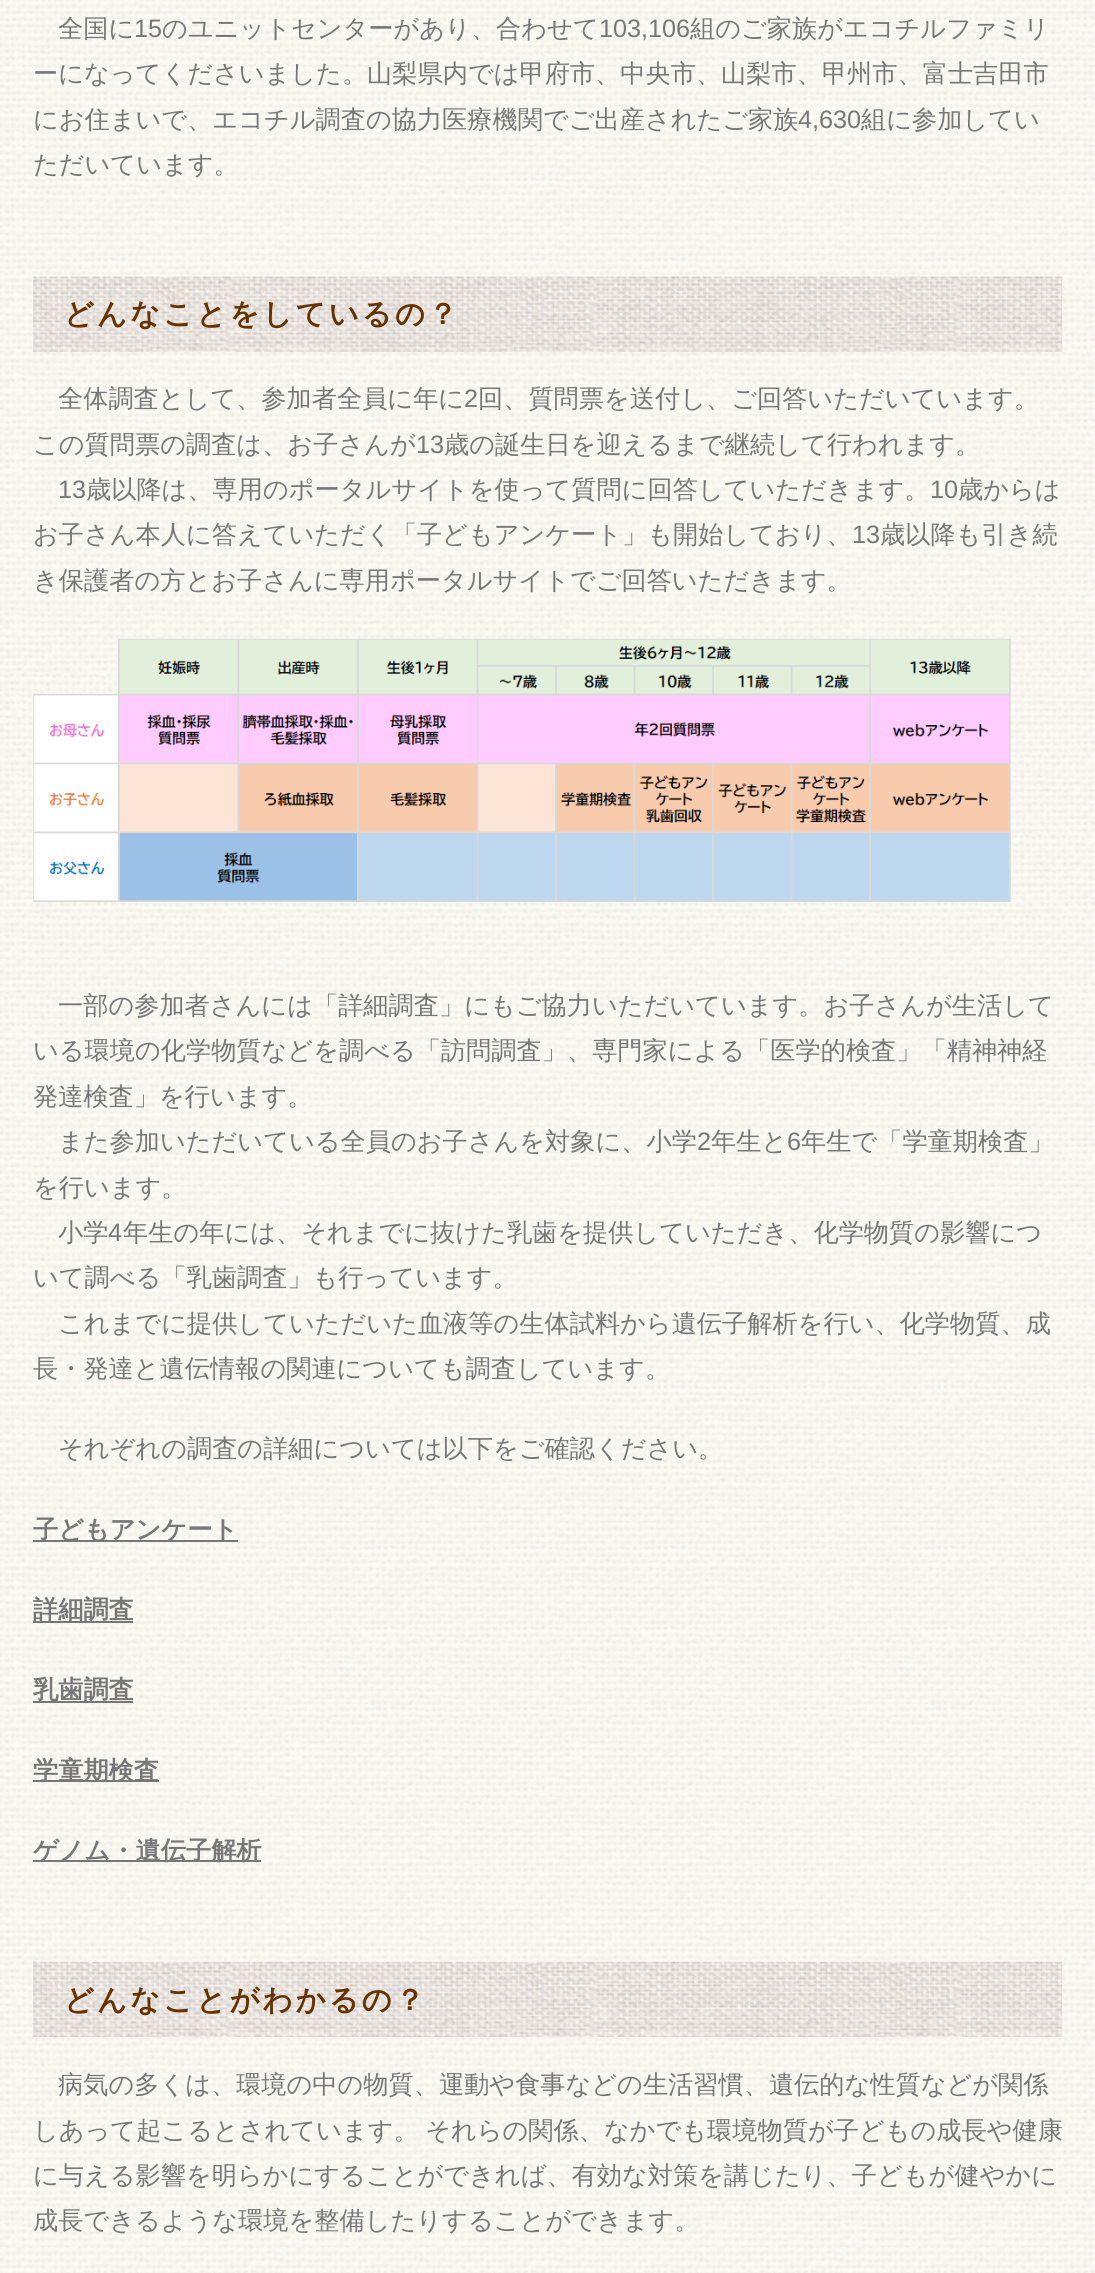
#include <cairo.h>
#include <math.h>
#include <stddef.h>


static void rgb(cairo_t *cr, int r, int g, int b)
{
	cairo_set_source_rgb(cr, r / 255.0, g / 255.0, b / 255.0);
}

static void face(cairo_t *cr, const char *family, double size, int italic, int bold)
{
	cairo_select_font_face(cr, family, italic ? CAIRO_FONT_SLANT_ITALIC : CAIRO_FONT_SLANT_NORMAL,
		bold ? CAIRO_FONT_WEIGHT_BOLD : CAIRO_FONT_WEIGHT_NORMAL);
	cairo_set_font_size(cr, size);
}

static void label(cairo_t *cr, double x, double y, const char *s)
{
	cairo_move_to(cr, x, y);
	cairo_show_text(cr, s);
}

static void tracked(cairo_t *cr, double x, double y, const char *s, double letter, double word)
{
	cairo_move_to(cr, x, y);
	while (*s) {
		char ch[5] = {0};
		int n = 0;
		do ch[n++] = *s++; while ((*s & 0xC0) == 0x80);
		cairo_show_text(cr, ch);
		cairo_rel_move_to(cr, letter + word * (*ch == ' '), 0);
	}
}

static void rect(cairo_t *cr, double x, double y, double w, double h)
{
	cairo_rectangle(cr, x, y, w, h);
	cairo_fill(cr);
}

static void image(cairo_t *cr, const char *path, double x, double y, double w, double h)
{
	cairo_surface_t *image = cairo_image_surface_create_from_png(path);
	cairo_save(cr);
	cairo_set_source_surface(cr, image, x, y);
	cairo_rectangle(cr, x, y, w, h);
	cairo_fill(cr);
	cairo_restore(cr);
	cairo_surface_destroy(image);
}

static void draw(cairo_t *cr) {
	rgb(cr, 255, 255, 255);
	cairo_paint(cr);
	image(cr, "image0.png", 0, 0, 1095, 2273);
	face(cr, "WenQuanYi Zen Hei Medium", 25.2, 0, 0);
	rgb(cr, 119, 119, 119);
	label(cr, 58, 37, "全国に");
	face(cr, "Liberation Sans", 25.2, 0, 0);
	label(cr, 134, 37, "15");
	face(cr, "WenQuanYi Zen Hei Medium", 25.2, 0, 0);
	label(cr, 162, 37, "のユニットセンターがあり、合わせて");
	face(cr, "Liberation Sans", 25.2, 0, 0);
	label(cr, 599, 37, "103,106");
	face(cr, "WenQuanYi Zen Hei Medium", 25.2, 0, 0);
	label(cr, 690, 37, "組のご家族がエコチルファミリ");
	label(cr, 33, 82, "ーになってくださいました。山梨県内では甲府市、中央市、山梨市、甲州市、富士吉田市");
	label(cr, 33, 128, "にお住まいで、エコチル調査の協力医療機関でご出産されたご家族");
	face(cr, "Liberation Sans", 25.2, 0, 0);
	label(cr, 798, 128, "4,630");
	face(cr, "WenQuanYi Zen Hei Medium", 25.2, 0, 0);
	label(cr, 861, 128, "組に参加してい");
	label(cr, 33, 173, "ただいています。");
	image(cr, "image1.png", 33, 276, 1030, 76);
	face(cr, "WenQuanYi Zen Hei", 29.4, 0, 1);
	rgb(cr, 102, 51, 0);
	tracked(cr, 64, 324, "どんなことをしているの？", 3, 0);
	face(cr, "WenQuanYi Zen Hei Medium", 25.2, 0, 0);
	rgb(cr, 119, 119, 119);
	label(cr, 58, 407, "全体調査として、参加者全員に年に");
	face(cr, "Liberation Sans", 25.2, 0, 0);
	label(cr, 464, 407, "2");
	face(cr, "WenQuanYi Zen Hei Medium", 25.2, 0, 0);
	label(cr, 478, 407, "回、質問票を送付し、ご回答いただいています。");
	label(cr, 33, 453, "この質問票の調査は、お子さんが");
	face(cr, "Liberation Sans", 25.2, 0, 0);
	label(cr, 416, 453, "13");
	face(cr, "WenQuanYi Zen Hei Medium", 25.2, 0, 0);
	label(cr, 444, 453, "歳の誕生日を迎えるまで継続して行われます。");
	face(cr, "Liberation Sans", 25.2, 0, 0);
	label(cr, 58, 498, "13");
	face(cr, "WenQuanYi Zen Hei Medium", 25.2, 0, 0);
	label(cr, 86, 498, "歳以降は、専用のポータルサイトを使って質問に回答していただきます。");
	face(cr, "Liberation Sans", 25.2, 0, 0);
	label(cr, 930, 498, "10");
	face(cr, "WenQuanYi Zen Hei Medium", 25.2, 0, 0);
	label(cr, 958, 498, "歳からは");
	label(cr, 33, 543, "お子さん本人に答えていただく「子どもアンケート」も開始しており、");
	face(cr, "Liberation Sans", 25.2, 0, 0);
	label(cr, 852, 543, "13");
	face(cr, "WenQuanYi Zen Hei Medium", 25.2, 0, 0);
	label(cr, 880, 543, "歳以降も引き続");
	label(cr, 33, 589, "き保護者の方とお子さんに専用ポータルサイトでご回答いただきます。");
	image(cr, "image2.png", 33, 638, 978, 264);
	label(cr, 58, 1014, "一部の参加者さんには「詳細調査」にもご協力いただいています。お子さんが生活して");
	label(cr, 33, 1059, "いる環境の化学物質などを調べる「訪問調査」、専門家による「医学的検査」「精神神経");
	label(cr, 33, 1105, "発達検査」を行います。");
	label(cr, 58, 1150, "また参加いただいている全員のお子さんを対象に、小学");
	face(cr, "Liberation Sans", 25.2, 0, 0);
	label(cr, 697, 1150, "2");
	face(cr, "WenQuanYi Zen Hei Medium", 25.2, 0, 0);
	label(cr, 711, 1150, "年生と");
	face(cr, "Liberation Sans", 25.2, 0, 0);
	label(cr, 787, 1150, "6");
	face(cr, "WenQuanYi Zen Hei Medium", 25.2, 0, 0);
	label(cr, 801, 1150, "年生で「学童期検査」");
	label(cr, 33, 1196, "を行います。");
	label(cr, 58, 1241, "小学");
	face(cr, "Liberation Sans", 25.2, 0, 0);
	label(cr, 108, 1241, "4");
	face(cr, "WenQuanYi Zen Hei Medium", 25.2, 0, 0);
	label(cr, 123, 1241, "年生の年には、それまでに抜けた乳歯を提供していただき、化学物質の影響につ");
	label(cr, 33, 1286, "いて調べる「乳歯調査」も行っています。");
	label(cr, 58, 1332, "これまでに提供していただいた血液等の生体試料から遺伝子解析を行い、化学物質、成");
	label(cr, 33, 1377, "長・発達と遺伝情報の関連についても調査しています。");
	label(cr, 58, 1457, "それぞれの調査の詳細については以下をご確認ください。");
	rect(cr, 33, 1540, 205, 2);
	face(cr, "WenQuanYi Zen Hei", 25.2, 0, 1);
	label(cr, 33, 1538, "子どもアンケート");
	rect(cr, 33, 1621, 100, 2);
	label(cr, 33, 1618, "詳細調査");
	rect(cr, 33, 1701, 100, 2);
	label(cr, 33, 1698, "乳歯調査");
	rect(cr, 33, 1780, 126, 2);
	label(cr, 33, 1779, "学童期検査");
	rect(cr, 33, 1860, 228, 2);
	label(cr, 33, 1859, "ゲノム・遺伝子解析");
	image(cr, "image3.png", 33, 1961, 1030, 76);
	face(cr, "WenQuanYi Zen Hei", 29.4, 0, 1);
	rgb(cr, 102, 51, 0);
	tracked(cr, 64, 2010, "どんなことがわかるの？", 3, 0);
	face(cr, "WenQuanYi Zen Hei Medium", 25.2, 0, 0);
	rgb(cr, 119, 119, 119);
	label(cr, 58, 2093, "病気の多くは、環境の中の物質、運動や食事などの生活習慣、遺伝的な性質などが関係");
	tracked(cr, 33, 2139, "しあって起こるとされています。 それらの関係、なかでも環境物質が子どもの成長や健康", 0, -1);
	label(cr, 33, 2184, "に与える影響を明らかにすることができれば、有効な対策を講じたり、子どもが健やかに");
	label(cr, 33, 2229, "成長できるような環境を整備したりすることができます。");
}

int main(void) {
	cairo_surface_t *surface = cairo_image_surface_create(CAIRO_FORMAT_RGB24, 1095, 2273);
	cairo_t *cr = cairo_create(surface);
	cairo_font_options_t *options = cairo_font_options_create();
	cairo_font_options_set_hint_metrics(options, CAIRO_HINT_METRICS_OFF);
	cairo_font_options_set_hint_style(options, CAIRO_HINT_STYLE_NONE);
	cairo_set_font_options(cr, options);
	cairo_set_miter_limit(cr, 4);
	draw(cr);
	cairo_surface_write_to_png(surface, "render.png");
	cairo_font_options_destroy(options);
	cairo_destroy(cr);
	cairo_surface_destroy(surface);
	return 0;
}
